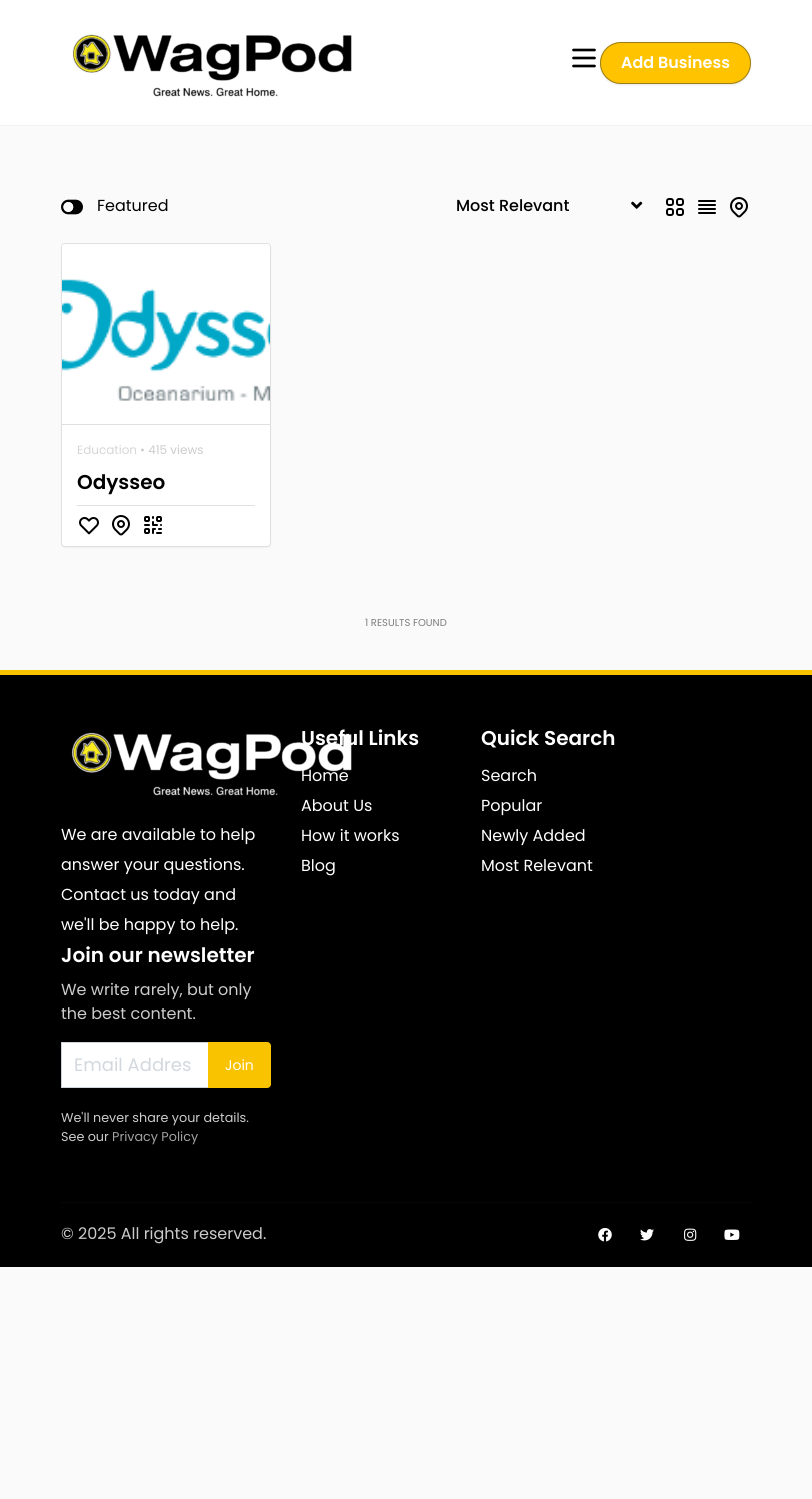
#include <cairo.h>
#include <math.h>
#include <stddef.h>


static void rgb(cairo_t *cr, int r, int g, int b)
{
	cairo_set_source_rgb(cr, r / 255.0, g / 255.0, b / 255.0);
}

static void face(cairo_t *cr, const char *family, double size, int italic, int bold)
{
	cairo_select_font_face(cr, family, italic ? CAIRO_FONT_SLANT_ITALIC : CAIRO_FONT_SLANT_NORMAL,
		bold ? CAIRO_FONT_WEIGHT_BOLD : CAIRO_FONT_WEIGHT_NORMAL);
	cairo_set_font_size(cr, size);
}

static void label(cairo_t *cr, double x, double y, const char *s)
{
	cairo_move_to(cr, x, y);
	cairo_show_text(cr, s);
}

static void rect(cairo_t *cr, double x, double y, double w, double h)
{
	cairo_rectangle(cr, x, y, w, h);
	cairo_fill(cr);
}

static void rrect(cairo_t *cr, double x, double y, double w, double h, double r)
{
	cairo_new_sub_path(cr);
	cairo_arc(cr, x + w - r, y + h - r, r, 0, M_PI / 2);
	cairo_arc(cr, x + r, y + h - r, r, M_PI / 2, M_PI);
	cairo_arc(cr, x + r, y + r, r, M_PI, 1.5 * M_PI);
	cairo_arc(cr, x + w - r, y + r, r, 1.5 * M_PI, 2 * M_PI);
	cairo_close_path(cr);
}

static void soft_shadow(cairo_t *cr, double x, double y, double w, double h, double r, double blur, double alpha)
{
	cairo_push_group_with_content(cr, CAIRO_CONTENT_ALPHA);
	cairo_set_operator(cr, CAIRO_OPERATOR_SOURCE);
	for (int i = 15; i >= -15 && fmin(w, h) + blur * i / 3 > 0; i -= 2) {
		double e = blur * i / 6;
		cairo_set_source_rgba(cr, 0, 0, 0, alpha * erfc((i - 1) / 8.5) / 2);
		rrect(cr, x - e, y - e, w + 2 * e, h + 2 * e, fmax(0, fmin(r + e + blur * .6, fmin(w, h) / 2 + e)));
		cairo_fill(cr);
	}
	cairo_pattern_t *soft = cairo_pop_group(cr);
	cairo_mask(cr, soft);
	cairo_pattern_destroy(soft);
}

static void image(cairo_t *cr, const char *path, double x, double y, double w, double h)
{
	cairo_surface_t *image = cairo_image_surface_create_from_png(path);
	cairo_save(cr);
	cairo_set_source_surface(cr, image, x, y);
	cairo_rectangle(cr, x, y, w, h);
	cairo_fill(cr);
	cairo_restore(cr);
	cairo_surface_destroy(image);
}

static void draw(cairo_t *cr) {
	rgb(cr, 250, 250, 251);
	cairo_paint(cr);
	rgb(cr, 255, 255, 255);
	rect(cr, 0, 0, 812, 125);
	rgb(cr, 242, 242, 242);
	rect(cr, 0, 125, 812, 1);
	image(cr, "image0.png", 72, 33, 280, 64);
	cairo_new_path(cr);
	cairo_move_to(cr, 573.5, 50);
	cairo_line_to(cr, 594.5, 50);
	cairo_move_to(cr, 573.5, 58);
	cairo_line_to(cr, 594.5, 58);
	cairo_move_to(cr, 573.5, 66);
	cairo_line_to(cr, 594.5, 66);
	rgb(cr, 0, 0, 0);
	cairo_set_line_width(cr, 2.7);
	cairo_set_line_cap(cr, CAIRO_LINE_CAP_ROUND);
	cairo_set_line_join(cr, CAIRO_LINE_JOIN_ROUND);
	cairo_stroke(cr);
	rgb(cr, 0, 0, 0);
	soft_shadow(cr, 600, 43, 151, 42, 21, 1, 0.1);
	rgb(cr, 255, 195, 0);
	rrect(cr, 600, 42, 151, 42, 21);
	cairo_fill(cr);
	rrect(cr, 600.5, 42.5, 150, 41, 20.5);
	cairo_set_source_rgba(cr, 0.212, 0.212, 0.212, 0.49);
	cairo_set_line_width(cr, 1);
	cairo_set_line_cap(cr, CAIRO_LINE_CAP_BUTT);
	cairo_set_line_join(cr, CAIRO_LINE_JOIN_MITER);
	cairo_stroke(cr);
	face(cr, "Poppins SemiBold", 16, 0, 0);
	rgb(cr, 255, 255, 255);
	label(cr, 621, 68, "Add Business");
	image(cr, "image1.png", 61, 199, 22, 16);
	face(cr, "Poppins", 16, 0, 0);
	rgb(cr, 0, 0, 0);
	label(cr, 97, 211, "Featured");
	face(cr, "Poppins Medium", 16, 0, 0);
	label(cr, 456, 211, "Most Relevant");
	image(cr, "image2.png", 631, 201, 12, 8);
	image(cr, "image3.png", 666, 198, 18, 18);
	cairo_new_path(cr);
	cairo_move_to(cr, 699, 201);
	cairo_line_to(cr, 715, 201);
	cairo_move_to(cr, 699, 205);
	cairo_line_to(cr, 715, 205);
	cairo_move_to(cr, 699, 209);
	cairo_line_to(cr, 715, 209);
	cairo_move_to(cr, 699, 213);
	cairo_line_to(cr, 715, 213);
	cairo_set_line_width(cr, 2);
	cairo_set_line_cap(cr, CAIRO_LINE_CAP_ROUND);
	cairo_set_line_join(cr, CAIRO_LINE_JOIN_ROUND);
	cairo_stroke(cr);
	image(cr, "image4.png", 730, 197, 18, 21);
	rgb(cr, 0, 0, 0);
	soft_shadow(cr, 61, 244, 210, 304, 4, 0.5, 0.04);
	rgb(cr, 255, 255, 255);
	rrect(cr, 61.5, 243.5, 209, 303, 3.5);
	cairo_fill_preserve(cr);
	rgb(cr, 224, 224, 224);
	cairo_set_line_width(cr, 1);
	cairo_set_line_cap(cr, CAIRO_LINE_CAP_BUTT);
	cairo_set_line_join(cr, CAIRO_LINE_JOIN_MITER);
	cairo_stroke(cr);
	image(cr, "image5.png", 62, 244, 208, 157);
	rect(cr, 62, 424, 208, 1);
	face(cr, "Poppins", 12, 0, 0);
	rgb(cr, 214, 214, 214);
	label(cr, 77, 454, "Education");
	rgb(cr, 204, 204, 204);
	label(cr, 140, 454, "• 415 views");
	face(cr, "Poppins SemiBold", 20, 0, 0);
	rgb(cr, 0, 0, 0);
	label(cr, 77, 489, "Odysseo");
	rgb(cr, 224, 224, 224);
	rect(cr, 77, 505, 178, 1);
	image(cr, "image6.png", 79, 517, 20, 18);
	image(cr, "image7.png", 112, 515, 18, 21);
	image(cr, "image8.png", 144, 516, 18, 18);
	face(cr, "Poppins", 10, 0, 0);
	rgb(cr, 125, 125, 126);
	label(cr, 365, 626, "1 RESULTS FOUND");
	rgb(cr, 250, 195, 0);
	rect(cr, 0, 670, 812, 5);
	rgb(cr, 0, 0, 0);
	rect(cr, 0, 675, 812, 592);
	image(cr, "image9.png", 71, 732, 281, 64);
	face(cr, "Poppins", 16, 0, 0);
	rgb(cr, 255, 255, 255);
	label(cr, 61, 840, "We are available to help");
	label(cr, 61, 870, "answer your questions.");
	label(cr, 61, 900, "Contact us today and");
	label(cr, 61, 930, "we'll be happy to help.");
	face(cr, "Poppins SemiBold", 20, 0, 0);
	label(cr, 301, 745, "Useful Links");
	face(cr, "Poppins", 16, 0, 0);
	label(cr, 301, 781, "Home");
	label(cr, 301, 811, "About Us");
	label(cr, 301, 841, "How it works");
	label(cr, 301, 871, "Blog");
	face(cr, "Poppins SemiBold", 20, 0, 0);
	label(cr, 481, 745, "Quick Search");
	face(cr, "Poppins", 16, 0, 0);
	label(cr, 481, 781, "Search");
	label(cr, 481, 811, "Popular");
	label(cr, 481, 841, "Newly Added");
	label(cr, 481, 871, "Most Relevant");
	face(cr, "Poppins SemiBold", 20, 0, 0);
	label(cr, 61, 962, "Join our newsletter");
	face(cr, "Poppins", 16, 0, 0);
	rgb(cr, 204, 204, 204);
	label(cr, 61, 995, "We write rarely, but only");
	label(cr, 61, 1019, "the best content.");
	rgb(cr, 255, 255, 255);
	cairo_rectangle(cr, 61.5, 1042.5, 147, 45);
	cairo_fill_preserve(cr);
	rgb(cr, 206, 212, 218);
	cairo_stroke(cr);
	face(cr, "Poppins", 18, 0, 0);
	rgb(cr, 210, 216, 221);
	label(cr, 74, 1071, "Email Addres");
	rgb(cr, 250, 195, 0);
	cairo_new_path(cr);
	cairo_move_to(cr, 208.5, 1042.5);
	cairo_line_to(cr, 267, 1042.5);
	cairo_curve_to(cr, 269, 1042.5, 270.5, 1044, 270.5, 1046);
	cairo_line_to(cr, 270.5, 1084);
	cairo_curve_to(cr, 270.5, 1086, 269, 1087.5, 267, 1087.5);
	cairo_line_to(cr, 208.5, 1087.5);
	cairo_close_path(cr);
	cairo_fill_preserve(cr);
	cairo_stroke(cr);
	face(cr, "Poppins", 14, 0, 0);
	rgb(cr, 255, 255, 255);
	label(cr, 225, 1070, "Join");
	face(cr, "Poppins", 12.75, 0, 0);
	rgb(cr, 204, 204, 204);
	label(cr, 61, 1122, "We'll never share your details.");
	label(cr, 61, 1141, "See our");
	rgb(cr, 163, 163, 163);
	label(cr, 112, 1141, "Privacy Policy");
	rgb(cr, 7, 7, 7);
	rect(cr, 61, 1202, 690, 1);
	face(cr, "Poppins", 16, 0, 0);
	rgb(cr, 204, 204, 204);
	label(cr, 61, 1239, "© 2025 All rights reserved.");
	image(cr, "image10.png", 598, 1228, 14, 14);
	image(cr, "image11.png", 640, 1229, 14, 12);
	image(cr, "image12.png", 684, 1228, 13, 13);
	image(cr, "image13.png", 724, 1229, 16, 11);
}

int main(void) {
	cairo_surface_t *surface = cairo_image_surface_create(CAIRO_FORMAT_RGB24, 812, 1499);
	cairo_t *cr = cairo_create(surface);
	cairo_font_options_t *options = cairo_font_options_create();
	cairo_font_options_set_hint_metrics(options, CAIRO_HINT_METRICS_OFF);
	cairo_font_options_set_hint_style(options, CAIRO_HINT_STYLE_NONE);
	cairo_set_font_options(cr, options);
	cairo_set_miter_limit(cr, 4);
	draw(cr);
	cairo_surface_write_to_png(surface, "render.png");
	cairo_font_options_destroy(options);
	cairo_destroy(cr);
	cairo_surface_destroy(surface);
	return 0;
}
